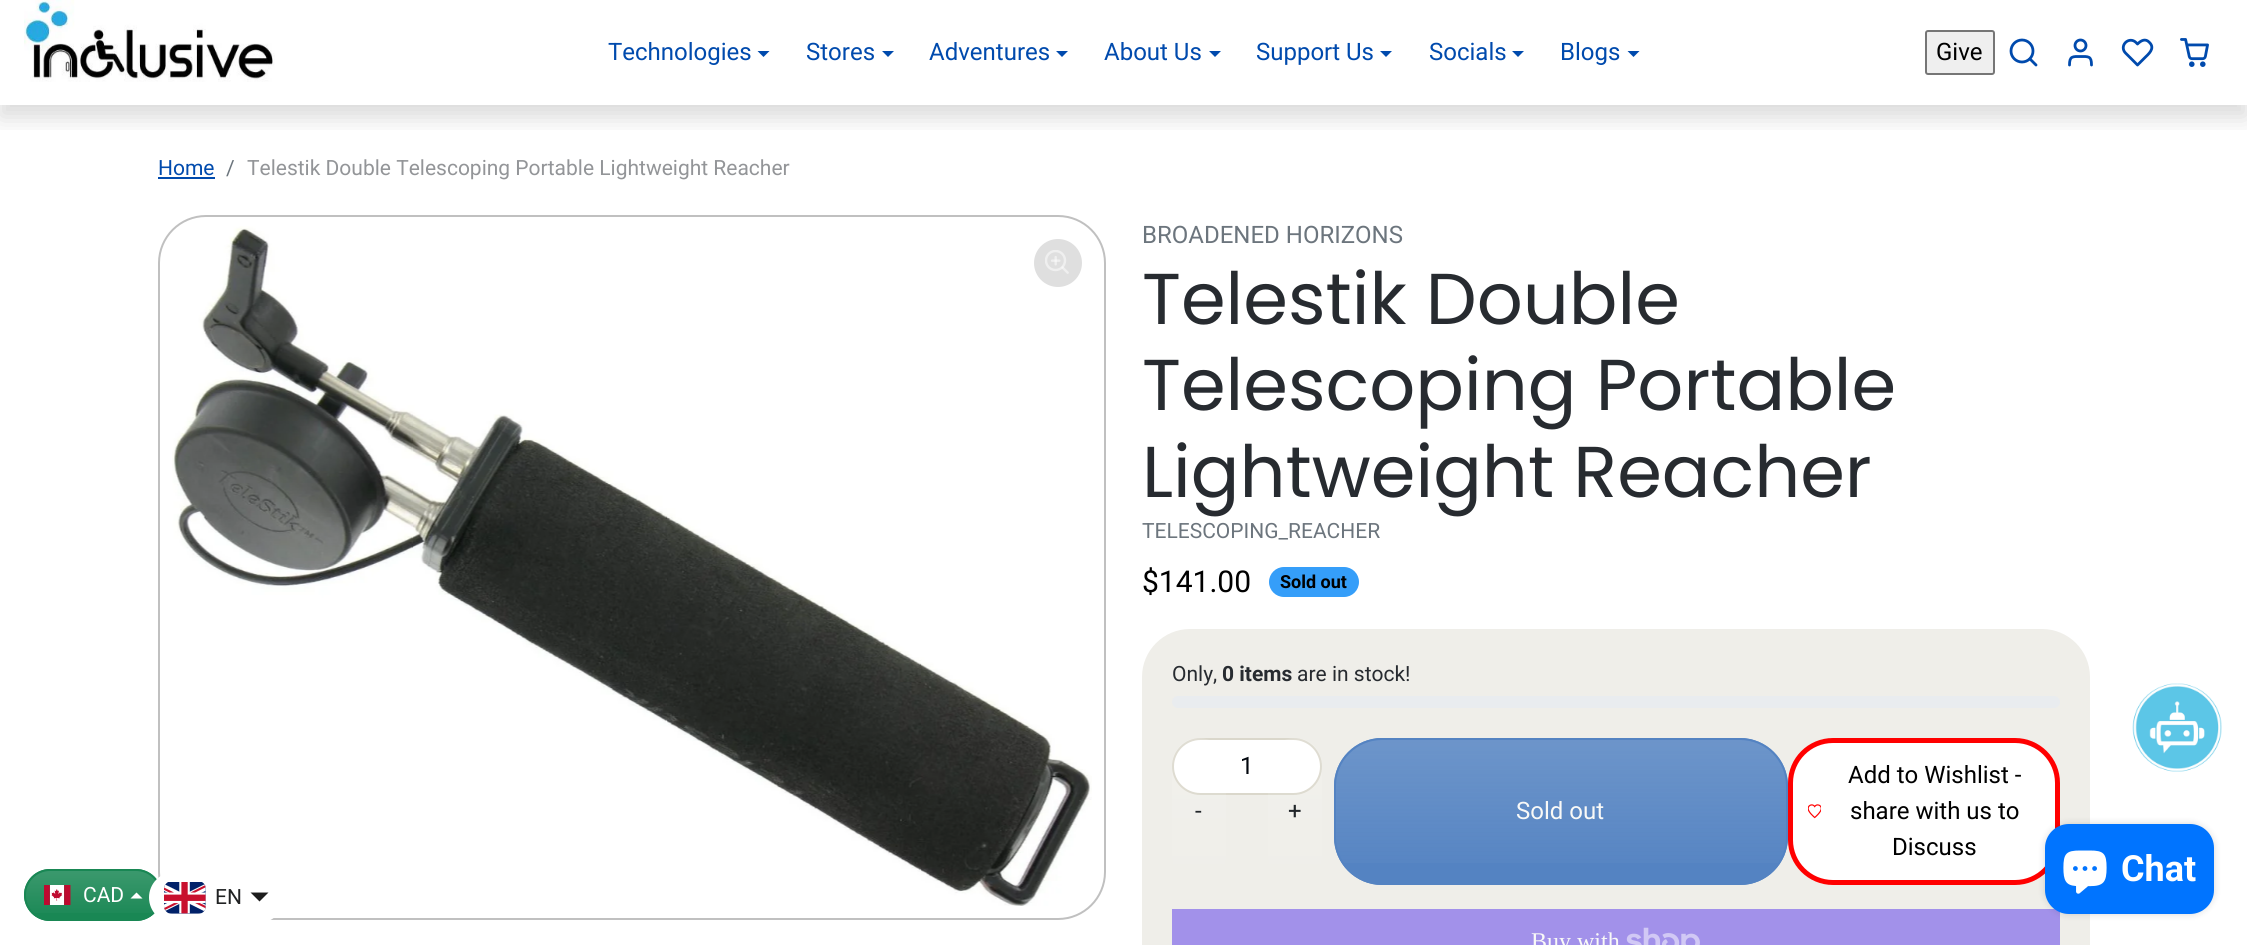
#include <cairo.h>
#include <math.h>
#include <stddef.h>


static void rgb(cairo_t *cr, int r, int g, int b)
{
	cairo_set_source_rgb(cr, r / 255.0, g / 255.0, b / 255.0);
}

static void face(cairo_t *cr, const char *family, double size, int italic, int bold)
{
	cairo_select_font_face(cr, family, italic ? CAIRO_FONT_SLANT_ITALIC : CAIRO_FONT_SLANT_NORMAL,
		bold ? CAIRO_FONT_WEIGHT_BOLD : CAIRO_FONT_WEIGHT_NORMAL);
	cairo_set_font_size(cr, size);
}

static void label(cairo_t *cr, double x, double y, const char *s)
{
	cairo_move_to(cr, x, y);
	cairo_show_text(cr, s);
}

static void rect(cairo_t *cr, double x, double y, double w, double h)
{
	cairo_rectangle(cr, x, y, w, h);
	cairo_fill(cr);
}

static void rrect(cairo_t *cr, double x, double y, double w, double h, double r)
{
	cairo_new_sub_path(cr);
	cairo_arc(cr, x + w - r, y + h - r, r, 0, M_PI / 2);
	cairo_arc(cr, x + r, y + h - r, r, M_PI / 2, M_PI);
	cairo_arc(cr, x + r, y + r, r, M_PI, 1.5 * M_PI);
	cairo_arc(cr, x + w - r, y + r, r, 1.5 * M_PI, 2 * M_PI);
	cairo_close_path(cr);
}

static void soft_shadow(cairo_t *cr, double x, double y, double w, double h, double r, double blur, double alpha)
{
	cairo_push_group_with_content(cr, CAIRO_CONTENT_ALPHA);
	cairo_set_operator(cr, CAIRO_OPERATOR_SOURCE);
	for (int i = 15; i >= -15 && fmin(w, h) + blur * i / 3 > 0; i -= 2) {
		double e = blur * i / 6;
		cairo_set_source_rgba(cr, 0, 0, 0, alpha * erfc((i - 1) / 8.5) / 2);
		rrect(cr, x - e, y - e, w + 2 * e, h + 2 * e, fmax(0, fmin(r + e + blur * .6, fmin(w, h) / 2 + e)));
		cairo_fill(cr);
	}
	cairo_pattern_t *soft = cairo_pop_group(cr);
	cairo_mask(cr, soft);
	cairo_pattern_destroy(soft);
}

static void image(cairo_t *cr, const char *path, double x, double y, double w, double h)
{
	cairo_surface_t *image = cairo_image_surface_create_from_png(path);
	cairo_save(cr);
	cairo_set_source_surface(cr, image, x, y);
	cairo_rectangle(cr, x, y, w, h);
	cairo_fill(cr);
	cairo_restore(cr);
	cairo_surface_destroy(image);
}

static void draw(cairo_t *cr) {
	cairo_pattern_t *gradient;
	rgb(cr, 255, 255, 255);
	cairo_paint(cr);
	cairo_save(cr);
	cairo_rectangle(cr, 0, 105, 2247, 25);
	cairo_clip(cr);
	rgb(cr, 0, 0, 0);
	soft_shadow(cr, 0, 12, 2247, 105, 0, 12, 0.15);
	cairo_restore(cr);
	image(cr, "image0.png", 24, 0, 251, 82);
	face(cr, "Roboto", 24, 0, 0);
	rgb(cr, 0, 74, 173);
	label(cr, 608, 60, "Technologies");
	cairo_new_path(cr);
	cairo_move_to(cr, 757.5, 51);
	cairo_line_to(cr, 769.5, 51);
	cairo_line_to(cr, 763.5, 57);
	cairo_close_path(cr);
	cairo_fill(cr);
	label(cr, 806, 60, "Stores");
	cairo_new_path(cr);
	cairo_move_to(cr, 882, 51);
	cairo_line_to(cr, 894, 51);
	cairo_line_to(cr, 888, 57);
	cairo_close_path(cr);
	cairo_fill(cr);
	label(cr, 929, 60, "Adventures");
	cairo_new_path(cr);
	cairo_move_to(cr, 1056, 51);
	cairo_line_to(cr, 1068, 51);
	cairo_line_to(cr, 1062, 57);
	cairo_close_path(cr);
	cairo_fill(cr);
	label(cr, 1104, 60, "About Us");
	cairo_new_path(cr);
	cairo_move_to(cr, 1209, 51);
	cairo_line_to(cr, 1221, 51);
	cairo_line_to(cr, 1215, 57);
	cairo_close_path(cr);
	cairo_fill(cr);
	label(cr, 1256, 60, "Support Us");
	cairo_new_path(cr);
	cairo_move_to(cr, 1380, 51);
	cairo_line_to(cr, 1392, 51);
	cairo_line_to(cr, 1386, 57);
	cairo_close_path(cr);
	cairo_fill(cr);
	label(cr, 1429, 60, "Socials");
	cairo_new_path(cr);
	cairo_move_to(cr, 1512, 51);
	cairo_line_to(cr, 1524, 51);
	cairo_line_to(cr, 1518, 57);
	cairo_close_path(cr);
	cairo_fill(cr);
	label(cr, 1560, 60, "Blogs");
	cairo_new_path(cr);
	cairo_move_to(cr, 1627.5, 51);
	cairo_line_to(cr, 1639.5, 51);
	cairo_line_to(cr, 1633.5, 57);
	cairo_close_path(cr);
	cairo_fill(cr);
	rgb(cr, 239, 239, 239);
	rrect(cr, 1926, 31, 68, 43, 2);
	cairo_fill_preserve(cr);
	rgb(cr, 118, 118, 118);
	cairo_stroke(cr);
	rgb(cr, 0, 0, 0);
	label(cr, 1936, 60, "Give");
	cairo_new_path(cr);
	cairo_arc(cr, 2022, 51, 11, 0, 2 * M_PI);
	rgb(cr, 0, 74, 173);
	cairo_set_line_width(cr, 2.8);
	cairo_stroke(cr);
	cairo_new_path(cr);
	cairo_move_to(cr, 2036, 65);
	cairo_line_to(cr, 2030, 59);
	cairo_set_line_cap(cr, CAIRO_LINE_CAP_ROUND);
	cairo_set_line_join(cr, CAIRO_LINE_JOIN_ROUND);
	cairo_stroke(cr);
	cairo_new_path(cr);
	cairo_move_to(cr, 2091.5, 65);
	cairo_curve_to(cr, 2091.5, 56, 2088.5, 56.5, 2080.5, 56.5);
	cairo_curve_to(cr, 2072.5, 56.5, 2069.5, 56, 2069.5, 65);
	cairo_stroke(cr);
	cairo_arc(cr, 2080.5, 45.5, 5.5, 0, 2 * M_PI);
	cairo_set_line_cap(cr, CAIRO_LINE_CAP_BUTT);
	cairo_set_line_join(cr, CAIRO_LINE_JOIN_MITER);
	cairo_stroke(cr);
	cairo_new_path(cr);
	cairo_move_to(cr, 2149.5, 42.5);
	cairo_curve_to(cr, 2145.5, 38, 2141, 40.5, 2137.5, 44);
	cairo_line_to(cr, 2136, 42.5);
	cairo_curve_to(cr, 2133, 39.5, 2128.5, 39.5, 2125.5, 42.5);
	cairo_curve_to(cr, 2122.5, 45.5, 2122.5, 50, 2125.5, 53);
	cairo_line_to(cr, 2137.5, 65);
	cairo_line_to(cr, 2144.5, 58);
	cairo_curve_to(cr, 2148.5, 54, 2155.5, 48.5, 2149.5, 42.5);
	cairo_close_path(cr);
	cairo_set_line_cap(cr, CAIRO_LINE_CAP_ROUND);
	cairo_set_line_join(cr, CAIRO_LINE_JOIN_ROUND);
	cairo_stroke(cr);
	image(cr, "image1.png", 2180, 38, 29, 29);
	face(cr, "Roboto", 21, 0, 0);
	label(cr, 158, 175, "Home");
	rect(cr, 158, 177, 57, 2);
	rgb(cr, 108, 117, 125);
	label(cr, 226, 175, "/");
	rgb(cr, 147, 149, 152);
	label(cr, 247, 175, "Telestik Double Telescoping Portable Lightweight Reacher");
	rrect(cr, 159, 216, 946, 703, 47);
	rgb(cr, 192, 192, 192);
	cairo_set_line_width(cr, 2);
	cairo_set_line_cap(cr, CAIRO_LINE_CAP_BUTT);
	cairo_set_line_join(cr, CAIRO_LINE_JOIN_MITER);
	cairo_stroke(cr);
	image(cr, "image2.png", 172, 226, 920, 680);
	rgb(cr, 223, 223, 223);
	cairo_arc(cr, 1058, 263, 24, 0, 2 * M_PI);
	cairo_fill(cr);
	image(cr, "image3.png", 1045, 250, 24, 24);
	face(cr, "Roboto", 24, 0, 0);
	rgb(cr, 108, 117, 125);
	label(cr, 1142, 243, "BROADENED HORIZONS");
	face(cr, "Poppins", 72, 0, 0);
	rgb(cr, 39, 43, 48);
	label(cr, 1142, 324, "Telestik Double");
	label(cr, 1142, 410, "Telescoping Portable");
	label(cr, 1142, 497, "Lightweight Reacher");
	face(cr, "Roboto", 21, 0, 0);
	rgb(cr, 108, 117, 125);
	label(cr, 1142, 538, "TELESCOPING_REACHER");
	face(cr, "Roboto", 30, 0, 0);
	rgb(cr, 0, 0, 0);
	label(cr, 1142, 592, "$141.00");
	rgb(cr, 53, 158, 249);
	rrect(cr, 1269, 567, 90, 30, 15);
	cairo_fill(cr);
	face(cr, "Roboto", 18, 0, 1);
	rgb(cr, 0, 0, 0);
	label(cr, 1280, 588, "Sold out");
	rgb(cr, 239, 238, 233);
	rrect(cr, 1142, 629, 948, 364, 48);
	cairo_fill(cr);
	face(cr, "Roboto", 21, 0, 0);
	rgb(cr, 39, 43, 48);
	label(cr, 1172, 681, "Only,");
	face(cr, "Roboto", 21, 0, 1);
	label(cr, 1222, 681, "0 items");
	face(cr, "Roboto", 21, 0, 0);
	label(cr, 1297, 681, "are in stock!");
	rgb(cr, 233, 236, 239);
	rrect(cr, 1172, 696, 888, 12, 6);
	cairo_fill(cr);
	rgb(cr, 255, 255, 255);
	rrect(cr, 1173, 739, 148, 55, 27.5);
	cairo_fill_preserve(cr);
	rgb(cr, 218, 215, 203);
	cairo_stroke(cr);
	face(cr, "Roboto", 24, 0, 0);
	rgb(cr, 1, 6, 13);
	label(cr, 1240, 774, "1");
	gradient = cairo_pattern_create_linear(1199, 738, 1199, 885);
	cairo_pattern_add_color_stop_rgba(gradient, 0, 1, 1, 1, 0.15);
	cairo_pattern_add_color_stop_rgba(gradient, 1, 1, 1, 1, 0);
	cairo_set_source(cr, gradient);
	cairo_pattern_destroy(gradient);
	rrect(cr, 1172, 738, 54, 147, 27);
	cairo_fill(cr);
	rgb(cr, 33, 37, 41);
	label(cr, 1195, 819, "-");
	gradient = cairo_pattern_create_linear(1295, 738, 1295, 885);
	cairo_pattern_add_color_stop_rgba(gradient, 0, 1, 1, 1, 0.15);
	cairo_pattern_add_color_stop_rgba(gradient, 1, 1, 1, 1, 0);
	cairo_set_source(cr, gradient);
	cairo_pattern_destroy(gradient);
	rrect(cr, 1268, 738, 54, 147, 27);
	cairo_fill(cr);
	rgb(cr, 33, 37, 41);
	label(cr, 1288, 819, "+");
	rgb(cr, 84, 131, 194);
	rrect(cr, 1334, 738, 454, 147, 48);
	cairo_fill(cr);
	cairo_save(cr);
	rrect(cr, 1334, 738, 454, 147, 48);
	cairo_clip(cr);
	gradient = cairo_pattern_create_linear(1561, 740, 1561, 884);
	cairo_pattern_add_color_stop_rgba(gradient, 0, 0.976, 0.976, 0.969, 0.15);
	cairo_pattern_add_color_stop_rgba(gradient, 1, 0.976, 0.976, 0.969, 0);
	cairo_set_source(cr, gradient);
	cairo_pattern_destroy(gradient);
	rect(cr, 1334, 740, 454, 123);
	cairo_restore(cr);
	rrect(cr, 1335, 739, 452, 145, 47);
	cairo_stroke(cr);
	rgb(cr, 249, 249, 247);
	label(cr, 1516, 819, "Sold out");
	rgb(cr, 255, 255, 255);
	rrect(cr, 1790.5, 740.5, 267, 142, 42.5);
	cairo_fill_preserve(cr);
	rgb(cr, 255, 0, 0);
	cairo_set_line_width(cr, 5);
	cairo_stroke(cr);
	image(cr, "image4.png", 1808, 804, 13, 15);
	rgb(cr, 0, 0, 0);
	label(cr, 1848, 783, "Add to Wishlist -");
	label(cr, 1850, 819, "share with us to");
	label(cr, 1892, 855, "Discuss");
	rgb(cr, 162, 145, 234);
	rect(cr, 1172, 909, 888, 36);
	face(cr, "Liberation Serif", 24, 0, 0);
	rgb(cr, 249, 249, 247);
	label(cr, 1531, 949, "Buy with");
	image(cr, "image5.png", 1626, 927, 74, 18);
	image(cr, "image6.png", 2132, 683, 90, 89);
	rgb(cr, 0, 0, 0);
	soft_shadow(cr, 2045, 824, 169, 90, 24, 4, 0.15);
	rgb(cr, 0, 116, 255);
	rrect(cr, 2045, 824, 169, 90, 24);
	cairo_fill(cr);
	image(cr, "image7.png", 2063, 850, 44, 44);
	face(cr, "Roboto", 36, 0, 1);
	rgb(cr, 255, 255, 255);
	label(cr, 2121, 881, "Chat");
	rgb(cr, 25, 135, 84);
	rrect(cr, 24, 869, 138, 52, 26);
	cairo_fill(cr);
	cairo_save(cr);
	rrect(cr, 24, 869, 138, 52, 26);
	cairo_clip(cr);
	gradient = cairo_pattern_create_linear(93, 870, 93, 920);
	cairo_pattern_add_color_stop_rgba(gradient, 0, 1, 1, 1, 0.15);
	cairo_pattern_add_color_stop_rgba(gradient, 1, 1, 1, 1, 0);
	cairo_set_source(cr, gradient);
	cairo_pattern_destroy(gradient);
	rect(cr, 24, 870, 133, 43);
	cairo_restore(cr);
	rrect(cr, 25, 870, 136, 50, 25);
	cairo_set_line_width(cr, 2);
	cairo_stroke(cr);
	image(cr, "image8.png", 44, 885, 27, 20);
	face(cr, "Roboto", 21, 0, 0);
	rgb(cr, 255, 255, 255);
	label(cr, 83, 902, "CAD");
	cairo_new_path(cr);
	cairo_move_to(cr, 142.5, 898.5);
	cairo_line_to(cr, 130.5, 898.5);
	cairo_line_to(cr, 136.5, 892.5);
	cairo_close_path(cr);
	cairo_fill(cr);
	rrect(cr, 149, 872, 135, 51, 25.5);
	cairo_fill(cr);
	image(cr, "image9.png", 164, 882, 42, 32);
	rgb(cr, 32, 34, 35);
	label(cr, 215, 904, "EN");
	rgb(cr, 29, 29, 29);
	cairo_new_path(cr);
	cairo_move_to(cr, 250.5, 892.5);
	cairo_line_to(cr, 268.5, 892.5);
	cairo_line_to(cr, 259.5, 901.5);
	cairo_close_path(cr);
	cairo_fill(cr);
}

int main(void) {
	cairo_surface_t *surface = cairo_image_surface_create(CAIRO_FORMAT_RGB24, 2247, 945);
	cairo_t *cr = cairo_create(surface);
	cairo_font_options_t *options = cairo_font_options_create();
	cairo_font_options_set_hint_metrics(options, CAIRO_HINT_METRICS_OFF);
	cairo_font_options_set_hint_style(options, CAIRO_HINT_STYLE_NONE);
	cairo_set_font_options(cr, options);
	cairo_set_miter_limit(cr, 4);
	draw(cr);
	cairo_surface_write_to_png(surface, "render.png");
	cairo_font_options_destroy(options);
	cairo_destroy(cr);
	cairo_surface_destroy(surface);
	return 0;
}
